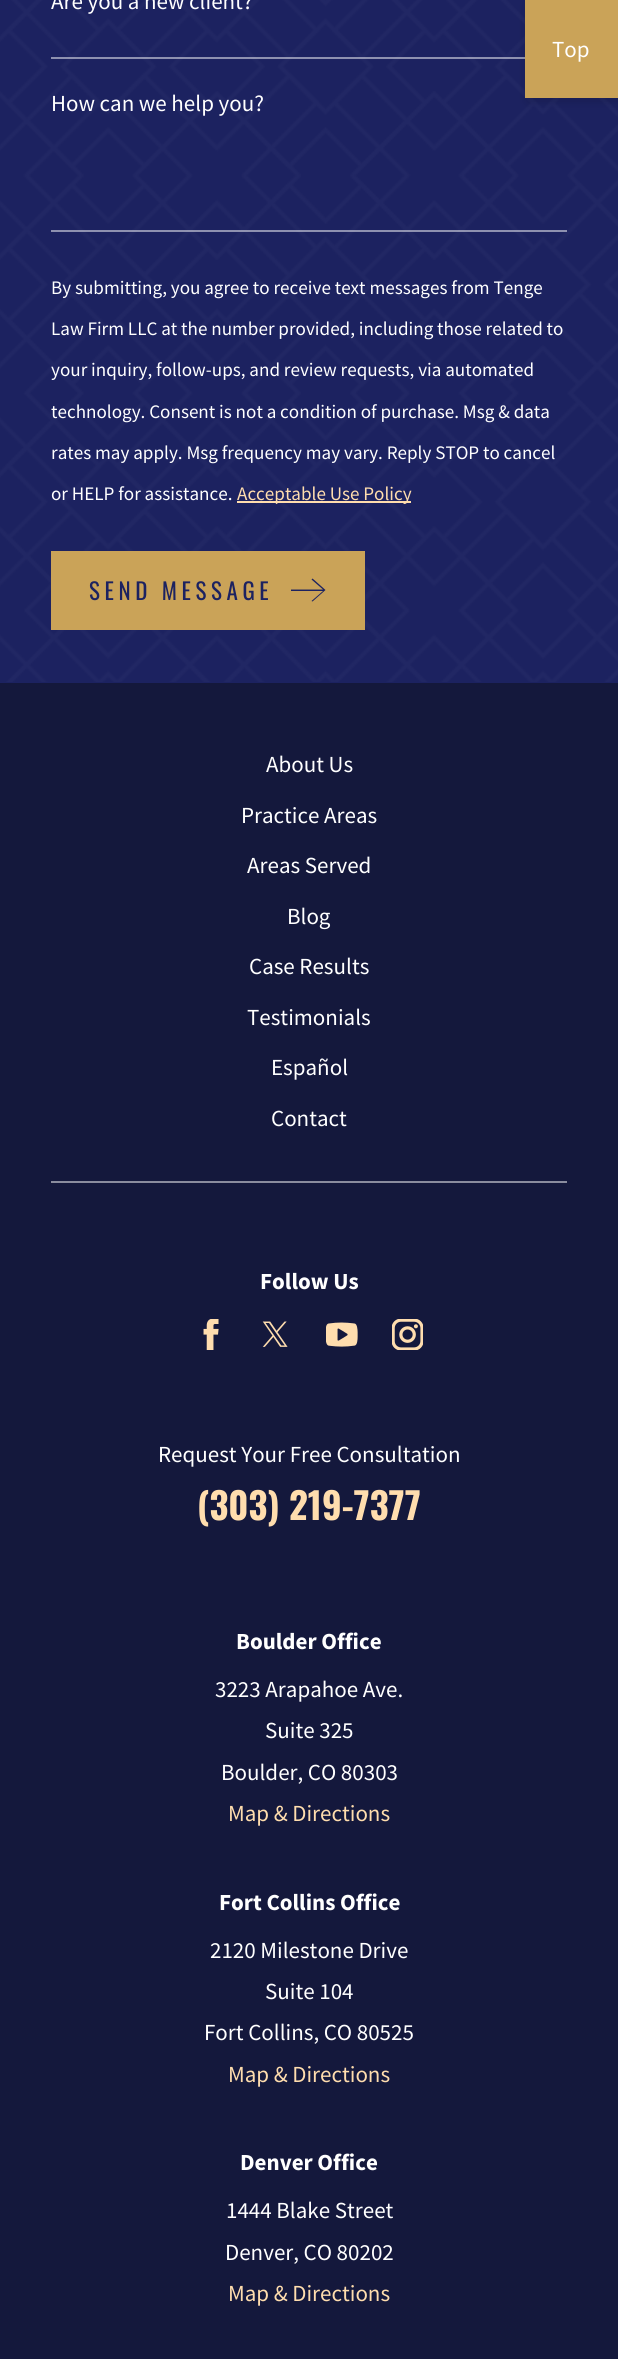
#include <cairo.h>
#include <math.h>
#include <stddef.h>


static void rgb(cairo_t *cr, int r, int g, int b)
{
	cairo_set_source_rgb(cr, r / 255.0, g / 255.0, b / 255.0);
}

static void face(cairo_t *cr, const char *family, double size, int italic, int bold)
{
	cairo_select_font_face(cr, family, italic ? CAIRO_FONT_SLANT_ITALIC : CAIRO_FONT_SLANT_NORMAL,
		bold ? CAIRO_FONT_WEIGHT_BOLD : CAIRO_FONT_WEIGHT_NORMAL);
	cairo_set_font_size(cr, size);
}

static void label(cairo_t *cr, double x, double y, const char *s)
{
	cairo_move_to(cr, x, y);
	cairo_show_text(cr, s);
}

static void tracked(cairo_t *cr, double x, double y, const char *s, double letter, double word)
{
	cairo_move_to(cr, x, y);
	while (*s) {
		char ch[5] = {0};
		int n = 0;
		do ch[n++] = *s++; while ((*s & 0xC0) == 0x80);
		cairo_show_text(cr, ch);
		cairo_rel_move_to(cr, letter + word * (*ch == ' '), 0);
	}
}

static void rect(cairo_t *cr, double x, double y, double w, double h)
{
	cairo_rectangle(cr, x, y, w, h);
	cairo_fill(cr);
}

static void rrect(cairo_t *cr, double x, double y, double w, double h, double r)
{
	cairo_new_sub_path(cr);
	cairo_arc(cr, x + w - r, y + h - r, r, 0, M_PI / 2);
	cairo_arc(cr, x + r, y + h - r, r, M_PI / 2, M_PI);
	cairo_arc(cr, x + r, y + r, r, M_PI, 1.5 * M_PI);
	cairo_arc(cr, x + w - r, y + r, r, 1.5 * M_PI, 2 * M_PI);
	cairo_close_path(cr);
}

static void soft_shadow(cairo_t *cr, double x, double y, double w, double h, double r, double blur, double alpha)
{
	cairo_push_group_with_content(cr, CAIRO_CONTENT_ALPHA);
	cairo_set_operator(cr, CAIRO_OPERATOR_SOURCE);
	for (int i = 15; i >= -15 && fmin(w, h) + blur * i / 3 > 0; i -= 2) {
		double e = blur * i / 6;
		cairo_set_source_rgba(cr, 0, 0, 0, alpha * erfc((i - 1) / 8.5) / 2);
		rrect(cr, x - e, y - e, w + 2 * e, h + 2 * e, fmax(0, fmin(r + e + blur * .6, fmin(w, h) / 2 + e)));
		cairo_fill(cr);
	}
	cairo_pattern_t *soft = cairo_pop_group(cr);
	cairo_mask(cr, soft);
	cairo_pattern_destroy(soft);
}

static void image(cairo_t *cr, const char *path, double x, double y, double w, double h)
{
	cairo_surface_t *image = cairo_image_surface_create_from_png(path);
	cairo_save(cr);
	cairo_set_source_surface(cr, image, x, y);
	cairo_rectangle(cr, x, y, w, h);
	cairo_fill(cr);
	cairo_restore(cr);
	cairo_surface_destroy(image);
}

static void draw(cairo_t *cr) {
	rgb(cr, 20, 24, 60);
	cairo_paint(cr);
	rgb(cr, 28, 34, 96);
	rect(cr, 0, 0, 618, 683);
	image(cr, "image0.png", 0, 0, 618, 682);
	cairo_set_source_rgba(cr, 1, 1, 1, 0.5);
	rect(cr, 51, 57, 474, 2);
	face(cr, "Source Sans Pro", 23, 0, 0);
	rgb(cr, 255, 255, 255);
	label(cr, 51, 9, "Are you a new client?");
	cairo_set_source_rgba(cr, 1, 1, 1, 0.5);
	rect(cr, 51, 230, 516, 2);
	rgb(cr, 255, 255, 255);
	label(cr, 51, 111, "How can we help you?");
	face(cr, "Source Sans Pro", 19.1, 0, 0);
	label(cr, 51, 294, "By submitting, you agree to receive text messages from Tenge");
	label(cr, 51, 335, "Law Firm LLC at the number provided, including those related to");
	label(cr, 51, 376, "your inquiry, follow-ups, and review requests, via automated");
	label(cr, 51, 418, "technology. Consent is not a condition of purchase. Msg & data");
	label(cr, 51, 459, "rates may apply. Msg frequency may vary. Reply STOP to cancel");
	label(cr, 51, 500, "or HELP for assistance.");
	rgb(cr, 255, 221, 174);
	rect(cr, 237, 501, 174, 2);
	label(cr, 237, 500, "Acceptable Use Policy");
	rgb(cr, 202, 163, 88);
	rect(cr, 51, 551, 314, 79);
	face(cr, "Oswald", 23, 0, 0);
	rgb(cr, 28, 34, 96);
	tracked(cr, 89, 600, "SEND MESSAGE", 4.6, 0);
	cairo_new_path(cr);
	cairo_move_to(cr, 311.5, 601);
	cairo_line_to(cr, 312.5, 601.5);
	cairo_line_to(cr, 325.5, 590);
	cairo_line_to(cr, 312.5, 578.5);
	cairo_line_to(cr, 311.5, 579.5);
	cairo_line_to(cr, 323, 589.5);
	cairo_line_to(cr, 291, 589.5);
	cairo_line_to(cr, 291, 591);
	cairo_line_to(cr, 323, 591);
	cairo_close_path(cr);
	cairo_fill(cr);
	rgb(cr, 138, 140, 158);
	rect(cr, 51, 1181, 516, 2);
	face(cr, "Source Sans Pro", 23, 0, 0);
	rgb(cr, 255, 255, 255);
	label(cr, 266, 772, "About Us");
	label(cr, 241, 823, "Practice Areas");
	label(cr, 247, 873, "Areas Served");
	label(cr, 287, 924, "Blog");
	label(cr, 249, 974, "Case Results");
	label(cr, 247, 1025, "Testimonials");
	label(cr, 271, 1075, "Español");
	label(cr, 271, 1126, "Contact");
	face(cr, "Source Sans Pro", 23, 0, 1);
	label(cr, 260, 1289, "Follow Us");
	image(cr, "image1.png", 203, 1319, 16, 31);
	image(cr, "image2.png", 262, 1321, 26, 26);
	image(cr, "image3.png", 326, 1322, 32, 25);
	image(cr, "image4.png", 392, 1319, 31, 31);
	face(cr, "Source Sans Pro", 23, 0, 0);
	label(cr, 158, 1462, "Request Your Free Consultation");
	face(cr, "Oswald", 36.75, 0, 1);
	rgb(cr, 255, 221, 174);
	label(cr, 197, 1520, "(303) 219-7377");
	face(cr, "Source Sans Pro", 23, 0, 1);
	rgb(cr, 255, 255, 255);
	label(cr, 236, 1649, "Boulder Office");
	face(cr, "Source Sans Pro", 23, 0, 0);
	label(cr, 215, 1697, "3223 Arapahoe Ave.");
	label(cr, 265, 1738, "Suite 325");
	label(cr, 221, 1780, "Boulder, CO 80303");
	rgb(cr, 255, 221, 174);
	label(cr, 228, 1821, "Map & Directions");
	face(cr, "Source Sans Pro", 23, 0, 1);
	rgb(cr, 255, 255, 255);
	label(cr, 219, 1910, "Fort Collins Office");
	face(cr, "Source Sans Pro", 23, 0, 0);
	label(cr, 210, 1958, "2120 Milestone Drive");
	label(cr, 265, 1999, "Suite 104");
	label(cr, 204, 2040, "Fort Collins, CO 80525");
	rgb(cr, 255, 221, 174);
	label(cr, 228, 2082, "Map & Directions");
	face(cr, "Source Sans Pro", 23, 0, 1);
	rgb(cr, 255, 255, 255);
	label(cr, 240, 2170, "Denver Office");
	face(cr, "Source Sans Pro", 23, 0, 0);
	label(cr, 226, 2218, "1444 Blake Street");
	label(cr, 225, 2260, "Denver, CO 80202");
	rgb(cr, 255, 221, 174);
	label(cr, 228, 2301, "Map & Directions");
	rgb(cr, 0, 0, 0);
	soft_shadow(cr, 528, 3, 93, 98, 0, 5.5, 0.16);
	rgb(cr, 202, 163, 88);
	rect(cr, 525, 0, 93, 98);
	rgb(cr, 255, 255, 255);
	label(cr, 552, 57, "Top");
}

int main(void) {
	cairo_surface_t *surface = cairo_image_surface_create(CAIRO_FORMAT_RGB24, 618, 2359);
	cairo_t *cr = cairo_create(surface);
	cairo_font_options_t *options = cairo_font_options_create();
	cairo_font_options_set_hint_metrics(options, CAIRO_HINT_METRICS_OFF);
	cairo_font_options_set_hint_style(options, CAIRO_HINT_STYLE_NONE);
	cairo_set_font_options(cr, options);
	cairo_set_miter_limit(cr, 4);
	draw(cr);
	cairo_surface_write_to_png(surface, "render.png");
	cairo_font_options_destroy(options);
	cairo_destroy(cr);
	cairo_surface_destroy(surface);
	return 0;
}
